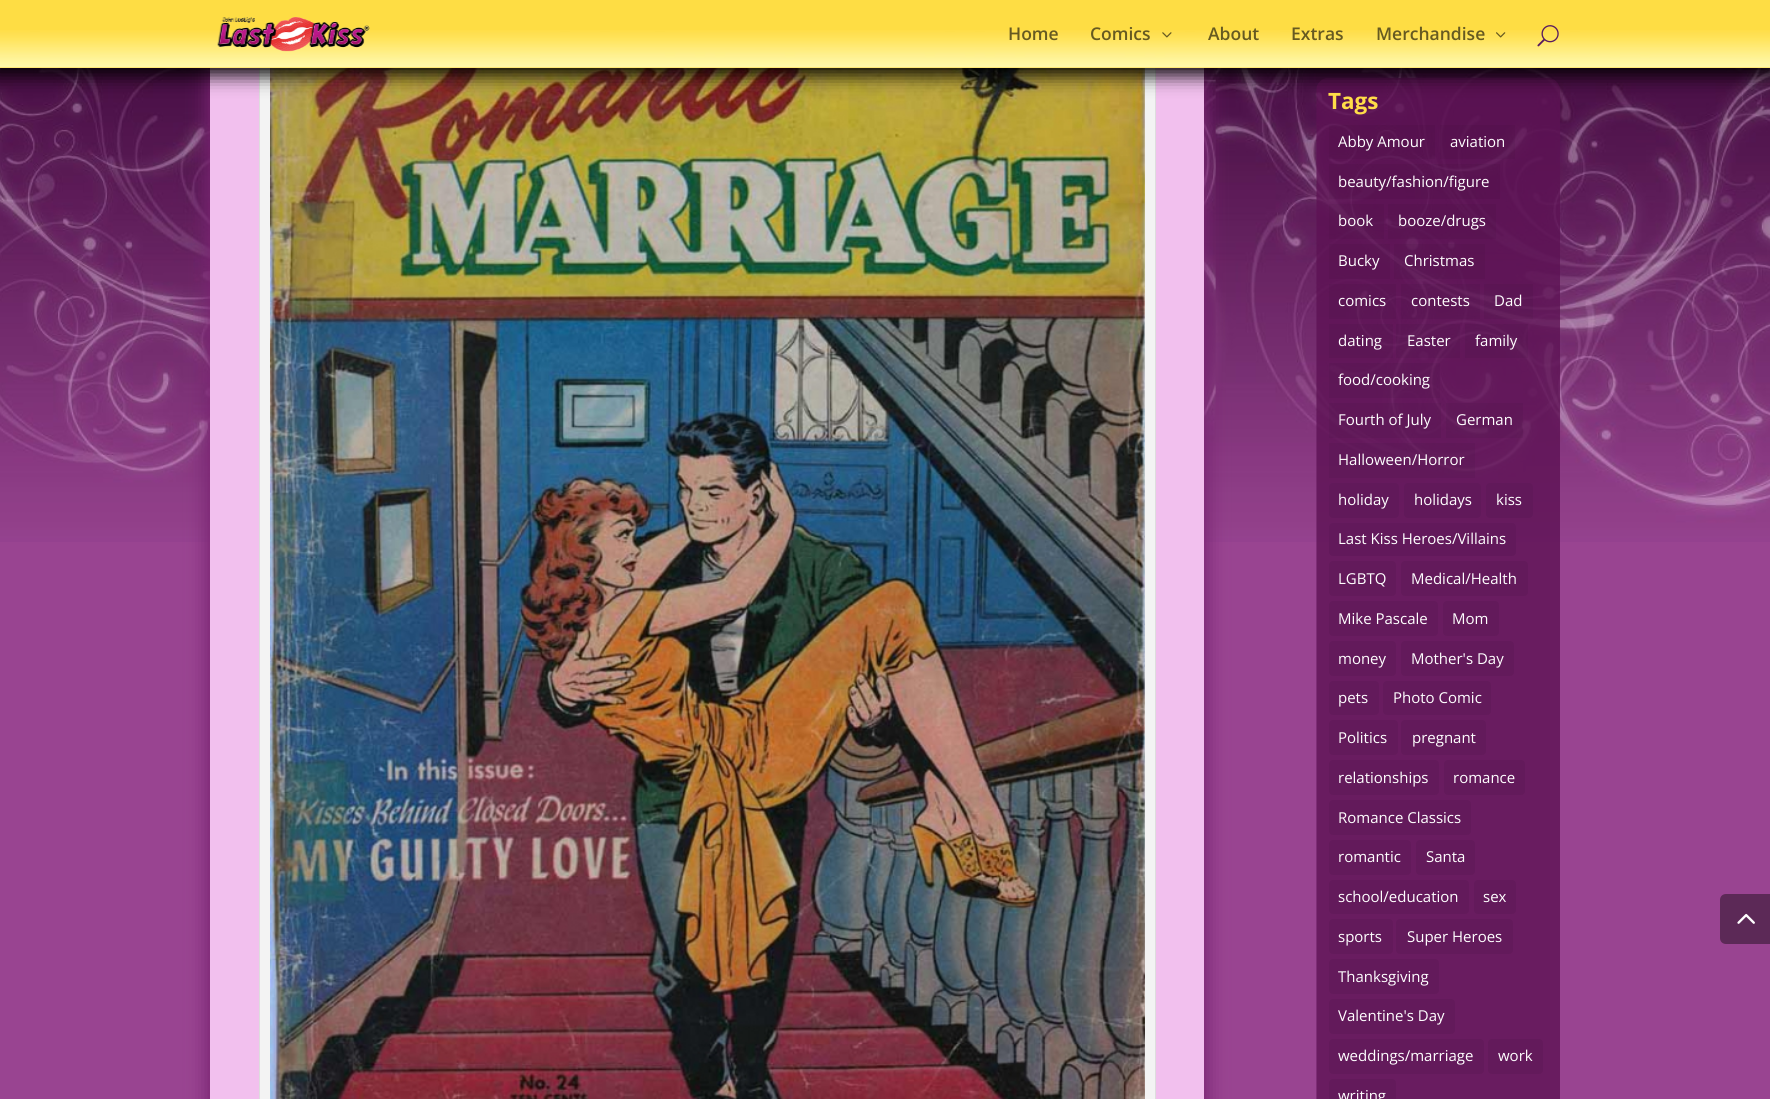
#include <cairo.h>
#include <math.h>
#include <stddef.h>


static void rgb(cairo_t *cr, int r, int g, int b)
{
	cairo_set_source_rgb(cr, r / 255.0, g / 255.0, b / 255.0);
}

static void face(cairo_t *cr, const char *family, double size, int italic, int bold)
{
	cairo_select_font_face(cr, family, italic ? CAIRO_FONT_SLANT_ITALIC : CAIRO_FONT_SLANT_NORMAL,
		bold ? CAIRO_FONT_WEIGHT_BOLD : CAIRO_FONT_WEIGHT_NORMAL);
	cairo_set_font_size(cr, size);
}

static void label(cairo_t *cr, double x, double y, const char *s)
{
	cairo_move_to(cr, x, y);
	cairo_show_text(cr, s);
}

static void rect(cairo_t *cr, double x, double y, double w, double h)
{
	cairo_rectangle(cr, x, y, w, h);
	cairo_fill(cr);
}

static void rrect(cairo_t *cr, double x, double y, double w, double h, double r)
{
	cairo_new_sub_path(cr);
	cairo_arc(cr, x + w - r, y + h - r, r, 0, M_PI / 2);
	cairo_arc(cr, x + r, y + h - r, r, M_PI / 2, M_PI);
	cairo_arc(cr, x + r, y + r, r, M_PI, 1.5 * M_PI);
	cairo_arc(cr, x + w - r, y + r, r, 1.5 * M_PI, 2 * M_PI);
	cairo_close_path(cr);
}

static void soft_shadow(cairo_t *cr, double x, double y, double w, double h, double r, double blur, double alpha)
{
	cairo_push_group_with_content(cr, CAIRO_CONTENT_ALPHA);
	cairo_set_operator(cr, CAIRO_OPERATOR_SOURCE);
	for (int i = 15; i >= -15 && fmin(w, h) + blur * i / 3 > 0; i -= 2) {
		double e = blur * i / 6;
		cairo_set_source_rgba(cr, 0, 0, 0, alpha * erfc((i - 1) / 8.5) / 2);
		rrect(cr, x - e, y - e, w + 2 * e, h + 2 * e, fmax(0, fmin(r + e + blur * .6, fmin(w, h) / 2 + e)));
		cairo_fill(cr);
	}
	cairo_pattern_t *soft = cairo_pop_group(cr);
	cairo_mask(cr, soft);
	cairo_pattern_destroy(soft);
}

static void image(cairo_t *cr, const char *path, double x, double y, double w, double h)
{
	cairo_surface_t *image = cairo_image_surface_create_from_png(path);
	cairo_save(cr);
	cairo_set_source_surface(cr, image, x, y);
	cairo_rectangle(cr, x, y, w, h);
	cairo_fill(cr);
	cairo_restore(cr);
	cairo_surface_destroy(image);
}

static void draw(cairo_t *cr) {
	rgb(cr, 153, 68, 145);
	cairo_paint(cr);
	image(cr, "image5.png", 0, 68, 1770, 474);
	rgb(cr, 120, 35, 113);
	soft_shadow(cr, 206, -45, 1002, 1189, 16, 9.5, 1);
	rgb(cr, 242, 192, 238);
	rect(cr, 210, 68, 994, 1031);
	rgb(cr, 243, 243, 243);
	rect(cr, 260, 68, 895, 1031);
	cairo_rectangle(cr, 259.5, -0.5, 896, 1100);
	rgb(cr, 221, 221, 221);
	cairo_set_line_width(cr, 1);
	cairo_stroke(cr);
	image(cr, "image6.png", 270, 68, 875, 1031);
	image(cr, "image7.png", 1316, 78, 244, 1021);
	rgb(cr, 0, 0, 0);
	soft_shadow(cr, -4, 0, 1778, 75, 0, 9.5, 1);
	rgb(cr, 254, 221, 68);
	rect(cr, 0, 0, 1770, 68);
	image(cr, "image0.png", 0, 30, 1770, 38);
	image(cr, "image1.png", 217, 17, 153, 35);
	face(cr, "Open Sans SemiBold", 17.5, 0, 0);
	rgb(cr, 102, 90, 33);
	label(cr, 1008, 40, "Home");
	label(cr, 1090, 40, "Comics");
	image(cr, "image2.png", 1162, 32, 10, 6);
	label(cr, 1208, 40, "About");
	label(cr, 1291, 40, "Extras");
	label(cr, 1376, 40, "Merchandise");
	image(cr, "image3.png", 1496, 32, 10, 6);
	image(cr, "image4.png", 1537, 25, 22, 22);
	face(cr, "Open Sans", 22.5, 0, 1);
	rgb(cr, 255, 221, 72);
	label(cr, 1328, 109, "Tags");
	cairo_set_source_rgba(cr, 0, 0, 0, 0.05);
	rect(cr, 1329, 125, 106, 34);
	face(cr, "Open Sans", 15, 0, 0);
	rgb(cr, 255, 255, 255);
	label(cr, 1338, 147, "Abby Amour");
	cairo_set_source_rgba(cr, 0, 0, 0, 0.05);
	rect(cr, 1440, 125, 75, 34);
	rgb(cr, 255, 255, 255);
	label(cr, 1450, 147, "aviation");
	cairo_set_source_rgba(cr, 0, 0, 0, 0.05);
	rect(cr, 1329, 164, 171, 35);
	rgb(cr, 255, 255, 255);
	label(cr, 1338, 187, "beauty/fashion/figure");
	cairo_set_source_rgba(cr, 0, 0, 0, 0.05);
	rect(cr, 1329, 204, 55, 35);
	rgb(cr, 255, 255, 255);
	label(cr, 1338, 226, "book");
	cairo_set_source_rgba(cr, 0, 0, 0, 0.05);
	rect(cr, 1388, 204, 108, 35);
	rgb(cr, 255, 255, 255);
	label(cr, 1398, 226, "booze/drugs");
	cairo_set_source_rgba(cr, 0, 0, 0, 0.05);
	rect(cr, 1329, 244, 61, 35);
	rgb(cr, 255, 255, 255);
	label(cr, 1338, 266, "Bucky");
	cairo_set_source_rgba(cr, 0, 0, 0, 0.05);
	rect(cr, 1394, 244, 91, 35);
	rgb(cr, 255, 255, 255);
	label(cr, 1404, 266, "Christmas");
	cairo_set_source_rgba(cr, 0, 0, 0, 0.05);
	rect(cr, 1329, 284, 67, 35);
	rgb(cr, 255, 255, 255);
	label(cr, 1338, 306, "comics");
	cairo_set_source_rgba(cr, 0, 0, 0, 0.05);
	rect(cr, 1401, 284, 79, 35);
	rgb(cr, 255, 255, 255);
	label(cr, 1411, 306, "contests");
	cairo_set_source_rgba(cr, 0, 0, 0, 0.05);
	rect(cr, 1484, 284, 49, 35);
	rgb(cr, 255, 255, 255);
	label(cr, 1494, 306, "Dad");
	cairo_set_source_rgba(cr, 0, 0, 0, 0.05);
	rect(cr, 1329, 324, 64, 34);
	rgb(cr, 255, 255, 255);
	label(cr, 1338, 346, "dating");
	cairo_set_source_rgba(cr, 0, 0, 0, 0.05);
	rect(cr, 1396, 324, 64, 34);
	rgb(cr, 255, 255, 255);
	label(cr, 1407, 346, "Easter");
	cairo_set_source_rgba(cr, 0, 0, 0, 0.05);
	rect(cr, 1465, 324, 63, 34);
	rgb(cr, 255, 255, 255);
	label(cr, 1475, 346, "family");
	cairo_set_source_rgba(cr, 0, 0, 0, 0.05);
	rect(cr, 1329, 363, 111, 35);
	rgb(cr, 255, 255, 255);
	label(cr, 1338, 385, "food/cooking");
	cairo_set_source_rgba(cr, 0, 0, 0, 0.05);
	rect(cr, 1329, 403, 112, 35);
	rgb(cr, 255, 255, 255);
	label(cr, 1338, 425, "Fourth of July");
	cairo_set_source_rgba(cr, 0, 0, 0, 0.05);
	rect(cr, 1446, 403, 77, 35);
	rgb(cr, 255, 255, 255);
	label(cr, 1456, 425, "German");
	cairo_set_source_rgba(cr, 0, 0, 0, 0.05);
	rect(cr, 1329, 443, 146, 35);
	rgb(cr, 255, 255, 255);
	label(cr, 1338, 465, "Halloween/Horror");
	rgb(cr, 97, 25, 90);
	rrect(cr, 1329, 483, 70, 35, 4);
	cairo_fill(cr);
	rgb(cr, 255, 255, 255);
	label(cr, 1338, 505, "holiday");
	rgb(cr, 97, 25, 90);
	rrect(cr, 1404, 483, 77, 35, 4);
	cairo_fill(cr);
	rgb(cr, 255, 255, 255);
	label(cr, 1414, 505, "holidays");
	rgb(cr, 97, 25, 90);
	rrect(cr, 1486, 483, 47, 35, 4);
	cairo_fill(cr);
	rgb(cr, 255, 255, 255);
	label(cr, 1496, 505, "kiss");
	rgb(cr, 98, 25, 91);
	rrect(cr, 1329, 523, 187, 33, 4);
	cairo_fill(cr);
	rgb(cr, 255, 255, 255);
	label(cr, 1338, 544, "Last Kiss Heroes/Villains");
	rgb(cr, 99, 26, 91);
	rrect(cr, 1329, 561, 67, 35, 4);
	cairo_fill(cr);
	rgb(cr, 255, 255, 255);
	label(cr, 1338, 584, "LGBTQ");
	rgb(cr, 99, 26, 91);
	rrect(cr, 1401, 561, 127, 35, 4);
	cairo_fill(cr);
	rgb(cr, 255, 255, 255);
	label(cr, 1411, 584, "Medical/Health");
	rgb(cr, 99, 26, 91);
	rrect(cr, 1329, 601, 109, 35, 4);
	cairo_fill(cr);
	rgb(cr, 255, 255, 255);
	label(cr, 1338, 624, "Mike Pascale");
	rgb(cr, 99, 26, 91);
	rrect(cr, 1443, 601, 56, 35, 4);
	cairo_fill(cr);
	rgb(cr, 255, 255, 255);
	label(cr, 1452, 624, "Mom");
	rgb(cr, 99, 26, 91);
	rrect(cr, 1329, 641, 67, 35, 4);
	cairo_fill(cr);
	rgb(cr, 255, 255, 255);
	label(cr, 1338, 664, "money");
	rgb(cr, 99, 26, 91);
	rrect(cr, 1401, 641, 113, 35, 4);
	cairo_fill(cr);
	rgb(cr, 255, 255, 255);
	label(cr, 1411, 664, "Mother's Day");
	rgb(cr, 99, 26, 91);
	rrect(cr, 1329, 681, 50, 34, 4);
	cairo_fill(cr);
	rgb(cr, 255, 255, 255);
	label(cr, 1338, 703, "pets");
	rgb(cr, 99, 26, 91);
	rrect(cr, 1383, 681, 108, 34, 4);
	cairo_fill(cr);
	rgb(cr, 255, 255, 255);
	label(cr, 1393, 703, "Photo Comic");
	rgb(cr, 99, 26, 91);
	rrect(cr, 1329, 720, 69, 35, 4);
	cairo_fill(cr);
	rgb(cr, 255, 255, 255);
	label(cr, 1338, 743, "Politics");
	rgb(cr, 99, 26, 91);
	rrect(cr, 1401, 720, 85, 35, 4);
	cairo_fill(cr);
	rgb(cr, 255, 255, 255);
	label(cr, 1412, 743, "pregnant");
	rgb(cr, 99, 26, 91);
	rrect(cr, 1329, 760, 110, 35, 4);
	cairo_fill(cr);
	rgb(cr, 255, 255, 255);
	label(cr, 1338, 783, "relationships");
	rgb(cr, 99, 26, 91);
	rrect(cr, 1444, 760, 81, 35, 4);
	cairo_fill(cr);
	rgb(cr, 255, 255, 255);
	label(cr, 1453, 783, "romance");
	rgb(cr, 99, 26, 91);
	rrect(cr, 1329, 800, 142, 35, 4);
	cairo_fill(cr);
	rgb(cr, 255, 255, 255);
	label(cr, 1338, 823, "Romance Classics");
	rgb(cr, 99, 26, 91);
	rrect(cr, 1329, 840, 82, 35, 4);
	cairo_fill(cr);
	rgb(cr, 255, 255, 255);
	label(cr, 1338, 862, "romantic");
	rgb(cr, 99, 26, 91);
	rrect(cr, 1416, 840, 59, 35, 4);
	cairo_fill(cr);
	rgb(cr, 255, 255, 255);
	label(cr, 1426, 862, "Santa");
	rgb(cr, 99, 26, 91);
	rrect(cr, 1329, 880, 140, 34, 4);
	cairo_fill(cr);
	rgb(cr, 255, 255, 255);
	label(cr, 1338, 902, "school/education");
	rgb(cr, 99, 26, 91);
	rrect(cr, 1474, 880, 42, 34, 4);
	cairo_fill(cr);
	rgb(cr, 255, 255, 255);
	label(cr, 1483, 902, "sex");
	rgb(cr, 99, 26, 91);
	rrect(cr, 1329, 919, 64, 35, 4);
	cairo_fill(cr);
	rgb(cr, 255, 255, 255);
	label(cr, 1338, 942, "sports");
	rgb(cr, 99, 26, 91);
	rrect(cr, 1396, 919, 117, 35, 4);
	cairo_fill(cr);
	rgb(cr, 255, 255, 255);
	label(cr, 1407, 942, "Super Heroes");
	rgb(cr, 99, 26, 91);
	rrect(cr, 1329, 959, 110, 35, 4);
	cairo_fill(cr);
	rgb(cr, 255, 255, 255);
	label(cr, 1338, 982, "Thanksgiving");
	rgb(cr, 99, 26, 91);
	rrect(cr, 1329, 999, 126, 35, 4);
	cairo_fill(cr);
	rgb(cr, 255, 255, 255);
	label(cr, 1338, 1021, "Valentine's Day");
	rgb(cr, 99, 26, 91);
	rrect(cr, 1329, 1039, 155, 35, 4);
	cairo_fill(cr);
	rgb(cr, 255, 255, 255);
	label(cr, 1338, 1061, "weddings/marriage");
	rgb(cr, 99, 26, 91);
	rrect(cr, 1488, 1039, 55, 35, 4);
	cairo_fill(cr);
	rgb(cr, 255, 255, 255);
	label(cr, 1498, 1061, "work");
	rgb(cr, 99, 26, 91);
	rrect(cr, 1329, 1079, 67, 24, 4);
	cairo_fill(cr);
	rgb(cr, 255, 255, 255);
	label(cr, 1338, 1101, "writing");
	rgb(cr, 92, 41, 87);
	cairo_new_path(cr);
	cairo_move_to(cr, 1726, 894);
	cairo_line_to(cr, 1770, 894);
	cairo_line_to(cr, 1770, 944);
	cairo_line_to(cr, 1726, 944);
	cairo_curve_to(cr, 1722.5, 944, 1720, 941.5, 1720, 938);
	cairo_line_to(cr, 1720, 900);
	cairo_curve_to(cr, 1720, 896.5, 1722.5, 894, 1726, 894);
	cairo_close_path(cr);
	cairo_fill(cr);
	image(cr, "image8.png", 1737, 913, 18, 11);
}

int main(void) {
	cairo_surface_t *surface = cairo_image_surface_create(CAIRO_FORMAT_RGB24, 1770, 1099);
	cairo_t *cr = cairo_create(surface);
	cairo_font_options_t *options = cairo_font_options_create();
	cairo_font_options_set_hint_metrics(options, CAIRO_HINT_METRICS_OFF);
	cairo_font_options_set_hint_style(options, CAIRO_HINT_STYLE_NONE);
	cairo_set_font_options(cr, options);
	cairo_set_miter_limit(cr, 4);
	draw(cr);
	cairo_surface_write_to_png(surface, "render.png");
	cairo_font_options_destroy(options);
	cairo_destroy(cr);
	cairo_surface_destroy(surface);
	return 0;
}
